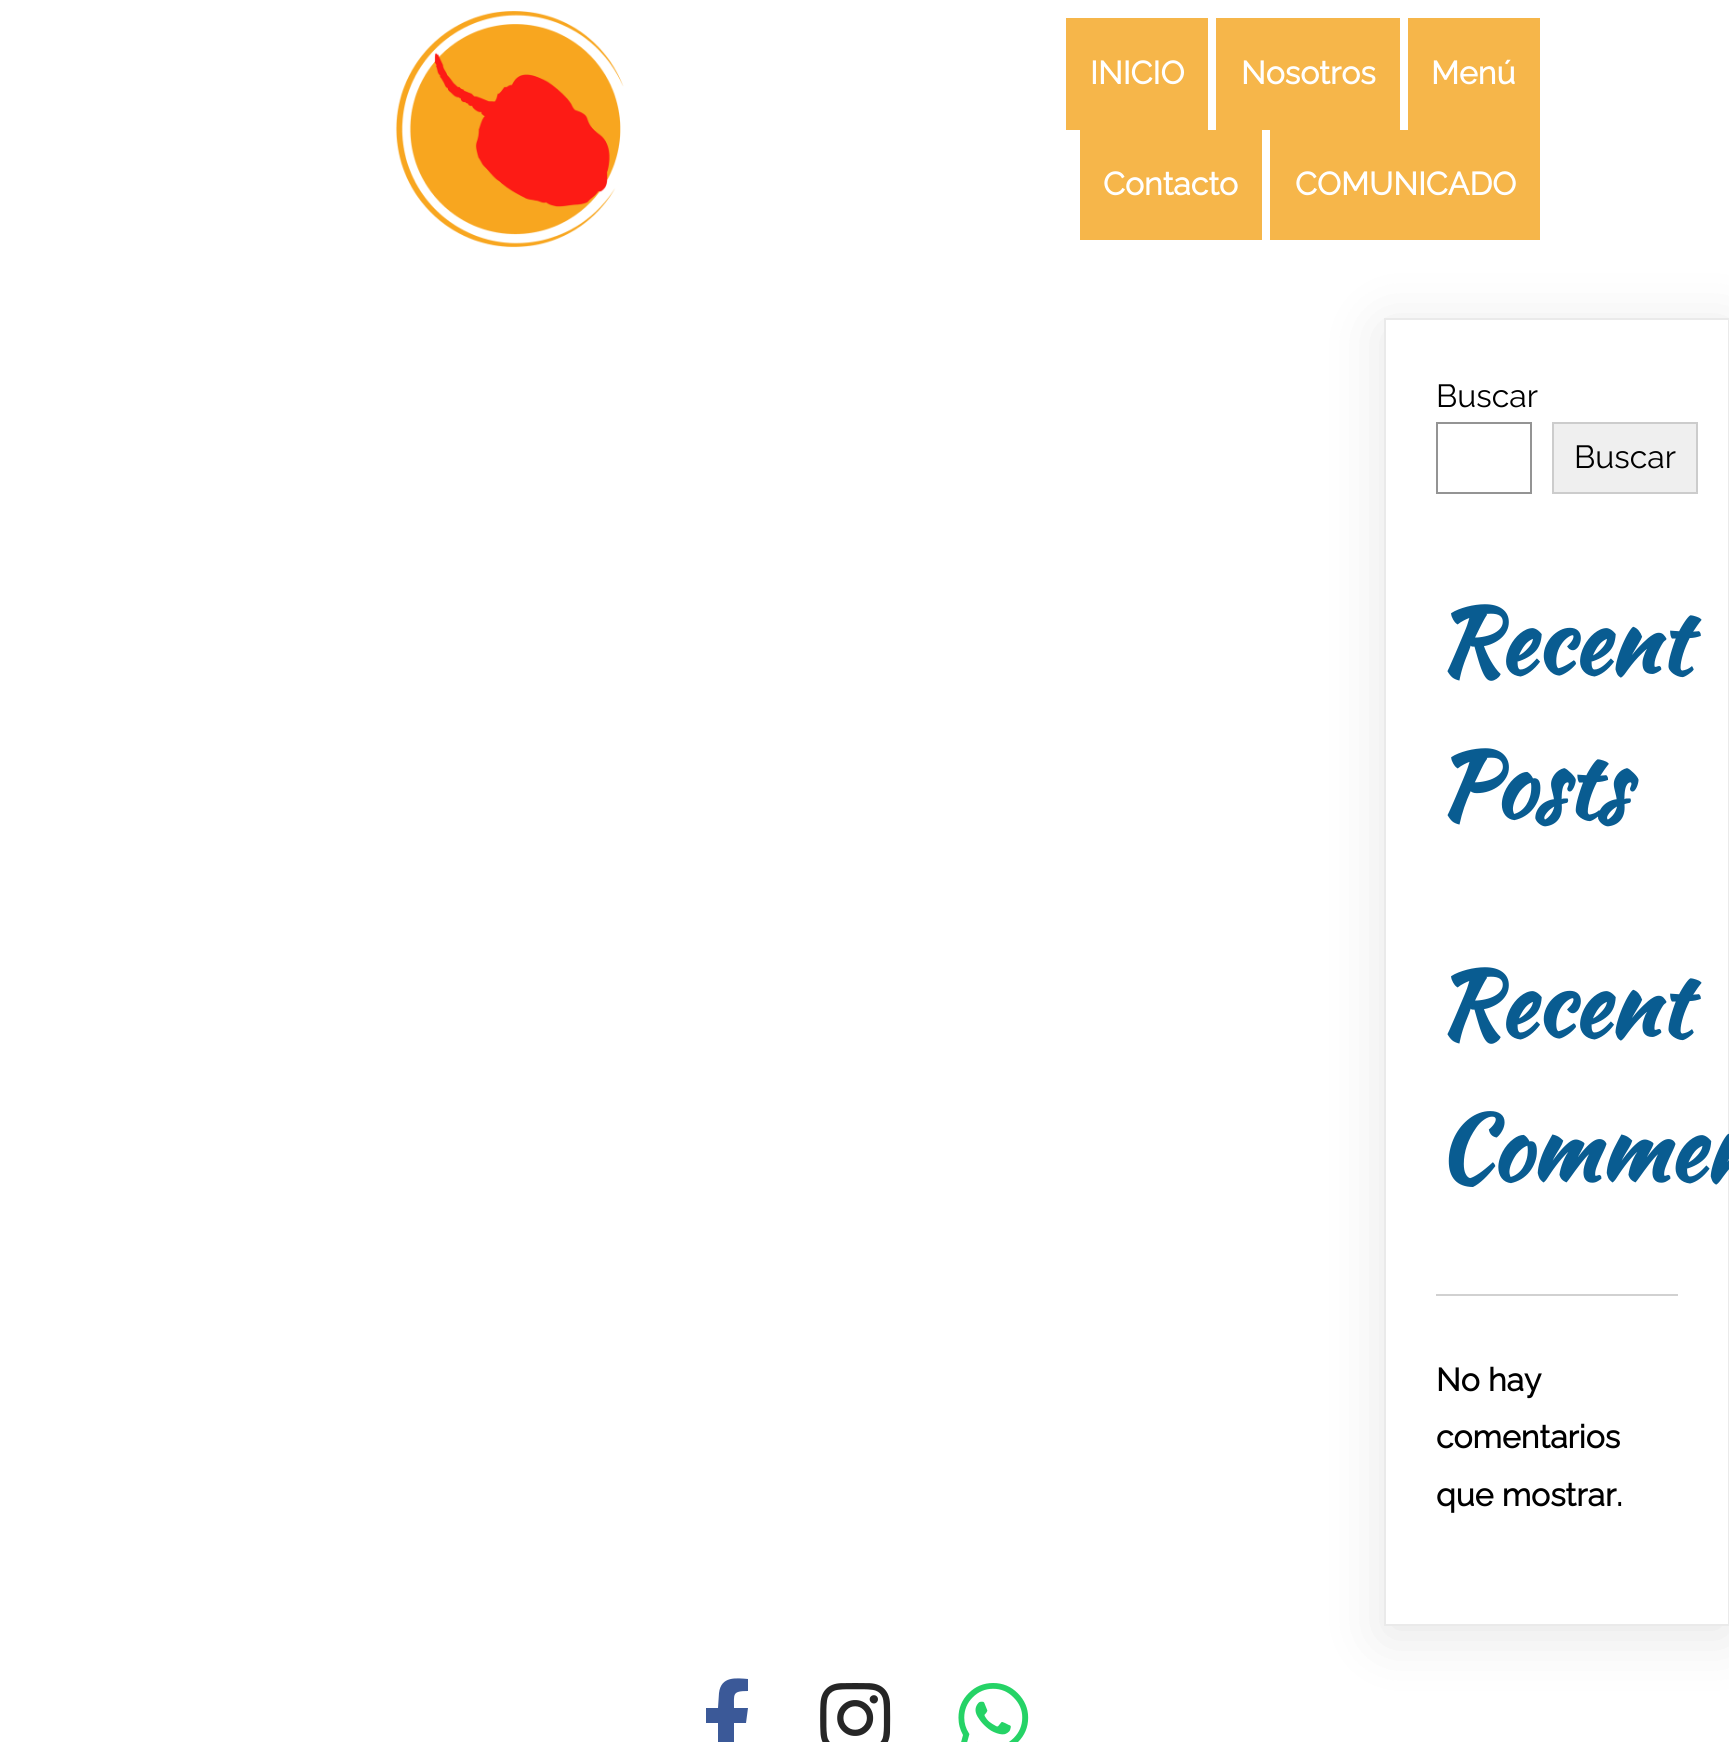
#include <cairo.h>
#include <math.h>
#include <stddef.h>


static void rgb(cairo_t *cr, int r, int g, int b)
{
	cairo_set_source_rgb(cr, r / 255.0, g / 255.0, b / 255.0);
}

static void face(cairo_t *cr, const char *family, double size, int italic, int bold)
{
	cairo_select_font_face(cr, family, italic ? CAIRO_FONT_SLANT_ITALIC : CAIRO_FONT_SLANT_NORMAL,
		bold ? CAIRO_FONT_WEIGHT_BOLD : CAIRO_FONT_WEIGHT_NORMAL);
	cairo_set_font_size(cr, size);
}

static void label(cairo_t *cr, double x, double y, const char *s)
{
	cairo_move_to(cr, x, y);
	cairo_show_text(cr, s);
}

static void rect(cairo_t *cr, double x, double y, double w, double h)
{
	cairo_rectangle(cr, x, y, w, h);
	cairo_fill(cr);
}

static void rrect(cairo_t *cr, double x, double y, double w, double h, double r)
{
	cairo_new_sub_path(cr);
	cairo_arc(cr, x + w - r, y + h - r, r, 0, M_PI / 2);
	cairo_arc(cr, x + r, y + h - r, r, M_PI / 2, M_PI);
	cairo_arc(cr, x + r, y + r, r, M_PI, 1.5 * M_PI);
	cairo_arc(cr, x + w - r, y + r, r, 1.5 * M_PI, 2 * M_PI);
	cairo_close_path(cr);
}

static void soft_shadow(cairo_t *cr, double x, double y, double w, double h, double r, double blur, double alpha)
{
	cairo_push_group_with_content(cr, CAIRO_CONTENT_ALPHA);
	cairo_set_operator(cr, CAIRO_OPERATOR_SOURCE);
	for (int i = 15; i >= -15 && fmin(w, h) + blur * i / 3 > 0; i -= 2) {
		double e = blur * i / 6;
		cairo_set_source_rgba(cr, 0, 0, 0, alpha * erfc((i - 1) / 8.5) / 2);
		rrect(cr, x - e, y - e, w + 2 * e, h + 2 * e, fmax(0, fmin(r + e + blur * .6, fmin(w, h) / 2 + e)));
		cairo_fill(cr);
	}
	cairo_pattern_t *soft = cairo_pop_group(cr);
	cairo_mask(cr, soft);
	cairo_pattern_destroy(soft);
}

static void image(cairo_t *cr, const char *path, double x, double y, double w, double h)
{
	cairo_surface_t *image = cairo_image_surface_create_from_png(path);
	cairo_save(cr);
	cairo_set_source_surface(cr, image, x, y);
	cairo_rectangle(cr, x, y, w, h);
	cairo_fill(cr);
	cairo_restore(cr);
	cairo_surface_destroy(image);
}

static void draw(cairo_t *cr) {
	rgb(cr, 255, 255, 255);
	cairo_paint(cr);
	image(cr, "image0.png", 395, 11, 229, 237);
	rgb(cr, 246, 182, 74);
	rect(cr, 1066, 18, 142, 112);
	face(cr, "Raleway", 32, 0, 1);
	rgb(cr, 255, 255, 255);
	label(cr, 1090, 84, "INICIO");
	rgb(cr, 246, 182, 74);
	rect(cr, 1216, 18, 184, 112);
	rgb(cr, 255, 255, 255);
	label(cr, 1241, 84, "Nosotros");
	rgb(cr, 246, 182, 74);
	rect(cr, 1408, 18, 132, 112);
	rgb(cr, 255, 255, 255);
	label(cr, 1431, 84, "Menú");
	rgb(cr, 246, 182, 74);
	rect(cr, 1080, 130, 182, 110);
	rgb(cr, 255, 255, 255);
	label(cr, 1103, 195, "Contacto");
	cairo_save(cr);
	cairo_set_fill_rule(cr, CAIRO_FILL_RULE_EVEN_ODD);
	cairo_new_path(cr);
	cairo_move_to(cr, 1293, 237);
	cairo_line_to(cr, 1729, 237);
	cairo_line_to(cr, 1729, 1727);
	cairo_line_to(cr, 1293, 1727);
	cairo_close_path(cr);
	cairo_move_to(cr, 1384, 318);
	cairo_line_to(cr, 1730, 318);
	cairo_line_to(cr, 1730, 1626);
	cairo_line_to(cr, 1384, 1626);
	cairo_close_path(cr);
	cairo_clip(cr);
	rgb(cr, 0, 0, 0);
	soft_shadow(cr, 1384, 328, 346, 1308, 0, 30, 0.1);
	cairo_restore(cr);
	rgb(cr, 246, 182, 74);
	rect(cr, 1270, 130, 270, 110);
	rgb(cr, 255, 255, 255);
	label(cr, 1295, 195, "COMUNICADO");
	cairo_rectangle(cr, 1385, 319, 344, 1306);
	rgb(cr, 234, 234, 234);
	cairo_stroke(cr);
	face(cr, "Raleway Thin", 32, 0, 0);
	rgb(cr, 0, 0, 0);
	label(cr, 1436, 407, "Buscar");
	cairo_rectangle(cr, 1437, 423, 94, 70);
	rgb(cr, 148, 148, 148);
	cairo_stroke(cr);
	rgb(cr, 239, 239, 239);
	cairo_rectangle(cr, 1553, 423, 144, 70);
	cairo_fill_preserve(cr);
	rgb(cr, 204, 204, 204);
	cairo_stroke(cr);
	rgb(cr, 0, 0, 0);
	label(cr, 1574, 468, "Buscar");
	face(cr, "Kaushan Script", 90, 0, 1);
	rgb(cr, 9, 92, 145);
	label(cr, 1436, 673, "Recent");
	label(cr, 1436, 817, "Posts");
	label(cr, 1436, 1036, "Recent");
	label(cr, 1436, 1180, "Commen");
	rgb(cr, 209, 209, 209);
	rect(cr, 1436, 1294, 242, 2);
	face(cr, "Raleway", 32, 0, 1);
	rgb(cr, 0, 0, 0);
	label(cr, 1436, 1391, "No hay");
	label(cr, 1436, 1448, "comentarios");
	label(cr, 1436, 1506, "que mostrar.");
	rgb(cr, 59, 89, 152);
	cairo_new_path(cr);
	cairo_move_to(cr, 746, 1723);
	cairo_line_to(cr, 734, 1723);
	cairo_line_to(cr, 734, 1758);
	cairo_line_to(cr, 718, 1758);
	cairo_line_to(cr, 718, 1723);
	cairo_line_to(cr, 706, 1723);
	cairo_line_to(cr, 706, 1708);
	cairo_line_to(cr, 718, 1708);
	cairo_line_to(cr, 719, 1693);
	cairo_curve_to(cr, 721, 1676, 736, 1678, 748, 1679);
	cairo_line_to(cr, 748, 1691);
	cairo_curve_to(cr, 732, 1691, 734, 1694, 734, 1708);
	cairo_line_to(cr, 748, 1708);
	cairo_close_path(cr);
	cairo_fill(cr);
	image(cr, "image1.png", 820, 1683, 71, 59);
	image(cr, "image2.png", 958, 1683, 71, 59);
}

int main(void) {
	cairo_surface_t *surface = cairo_image_surface_create(CAIRO_FORMAT_RGB24, 1729, 1742);
	cairo_t *cr = cairo_create(surface);
	cairo_font_options_t *options = cairo_font_options_create();
	cairo_font_options_set_hint_metrics(options, CAIRO_HINT_METRICS_OFF);
	cairo_font_options_set_hint_style(options, CAIRO_HINT_STYLE_NONE);
	cairo_set_font_options(cr, options);
	cairo_set_miter_limit(cr, 4);
	draw(cr);
	cairo_surface_write_to_png(surface, "render.png");
	cairo_font_options_destroy(options);
	cairo_destroy(cr);
	cairo_surface_destroy(surface);
	return 0;
}
